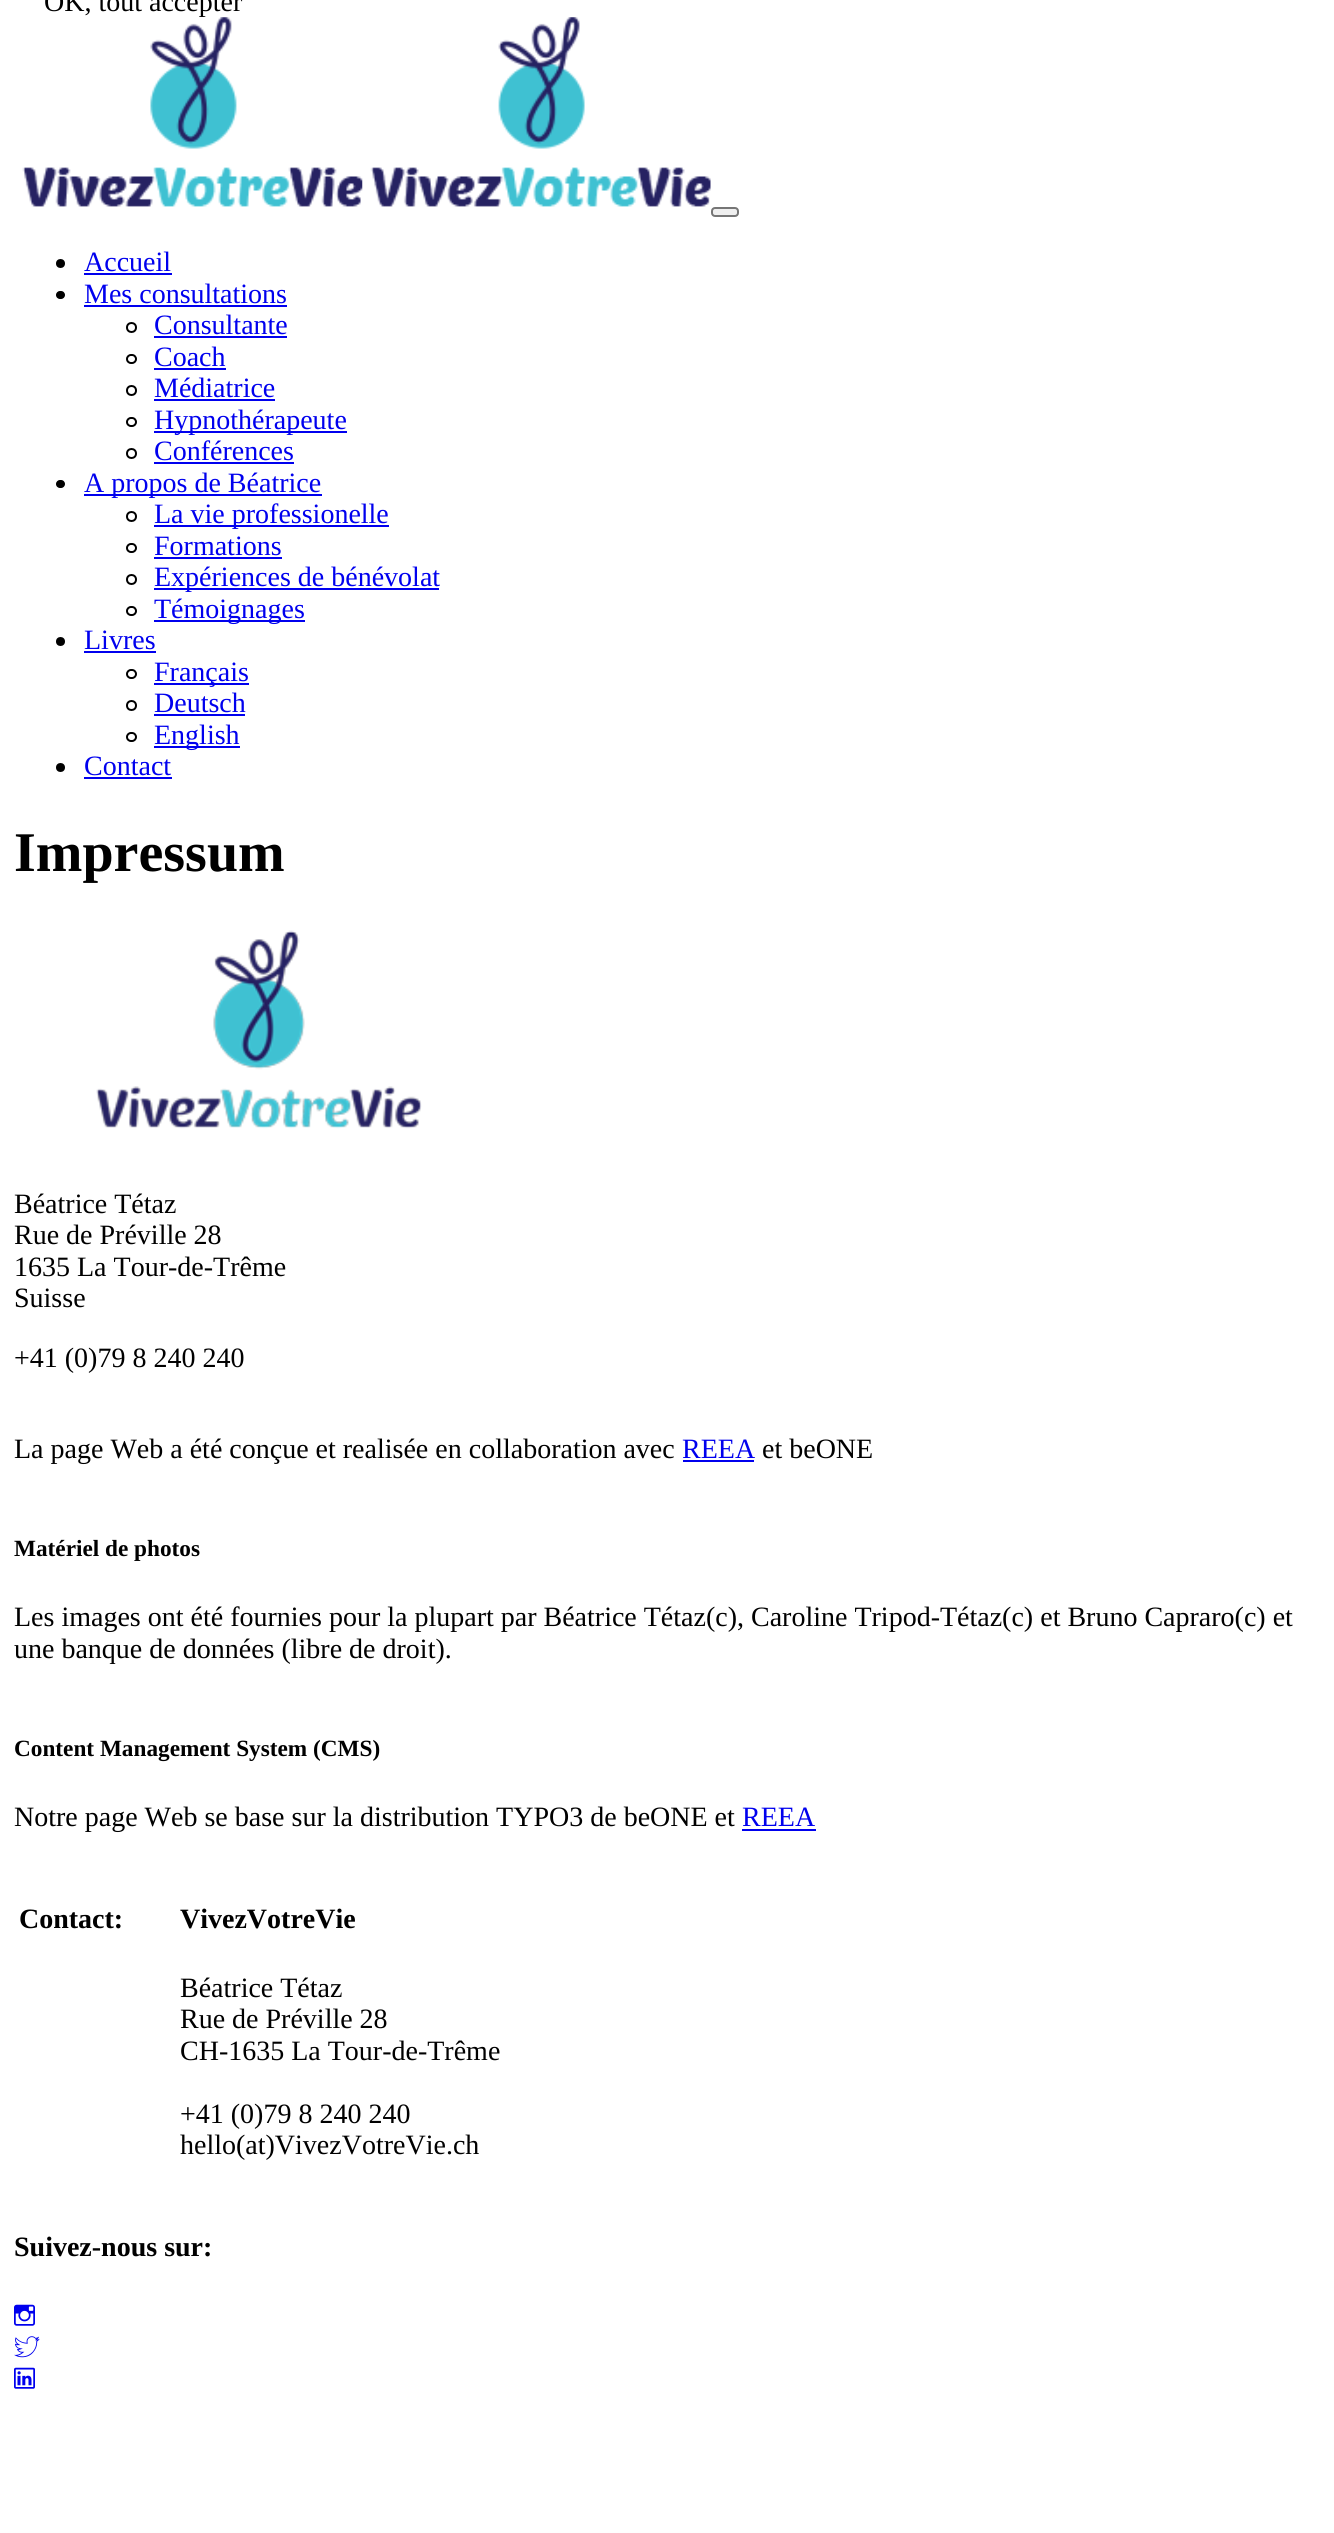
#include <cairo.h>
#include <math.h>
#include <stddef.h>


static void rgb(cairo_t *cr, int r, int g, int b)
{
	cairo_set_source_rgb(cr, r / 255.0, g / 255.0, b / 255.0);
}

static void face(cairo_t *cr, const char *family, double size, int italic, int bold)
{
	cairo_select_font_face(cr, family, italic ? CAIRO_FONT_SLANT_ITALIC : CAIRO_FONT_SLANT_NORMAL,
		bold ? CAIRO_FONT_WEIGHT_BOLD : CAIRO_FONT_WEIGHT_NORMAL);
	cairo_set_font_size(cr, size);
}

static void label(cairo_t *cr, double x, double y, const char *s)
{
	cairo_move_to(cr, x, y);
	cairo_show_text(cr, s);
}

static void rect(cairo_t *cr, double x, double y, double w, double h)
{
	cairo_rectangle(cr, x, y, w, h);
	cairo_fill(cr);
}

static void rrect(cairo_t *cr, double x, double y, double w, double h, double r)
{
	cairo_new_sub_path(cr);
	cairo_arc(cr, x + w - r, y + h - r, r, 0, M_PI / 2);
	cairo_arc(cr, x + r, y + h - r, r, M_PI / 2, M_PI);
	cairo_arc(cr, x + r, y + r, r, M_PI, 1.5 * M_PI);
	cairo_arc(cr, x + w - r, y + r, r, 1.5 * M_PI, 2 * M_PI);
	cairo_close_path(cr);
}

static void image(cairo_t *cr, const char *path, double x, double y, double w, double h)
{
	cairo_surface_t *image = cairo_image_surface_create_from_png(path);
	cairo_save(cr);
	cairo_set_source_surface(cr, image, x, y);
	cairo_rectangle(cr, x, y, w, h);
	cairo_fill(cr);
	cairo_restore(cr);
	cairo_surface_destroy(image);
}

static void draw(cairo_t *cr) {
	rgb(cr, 255, 255, 255);
	cairo_paint(cr);
	face(cr, "Liberation Serif", 28, 0, 0);
	rgb(cr, 0, 0, 0);
	label(cr, 44, 11, "OK, tout accepter");
	image(cr, "image0.png", 22, 17, 341, 190);
	image(cr, "image1.png", 370, 17, 341, 190);
	rgb(cr, 239, 239, 239);
	rrect(cr, 712, 208, 26, 8, 3);
	cairo_fill_preserve(cr);
	rgb(cr, 118, 118, 118);
	cairo_stroke(cr);
	rgb(cr, 0, 0, 0);
	cairo_arc(cr, 60.5, 263.5, 4.5, 0, 2 * M_PI);
	cairo_fill(cr);
	rgb(cr, 0, 0, 238);
	label(cr, 84, 271, "Accueil");
	rect(cr, 84, 273, 88, 2);
	rgb(cr, 0, 0, 0);
	rrect(cr, 56, 291, 9, 8, 4);
	cairo_fill(cr);
	rgb(cr, 0, 0, 238);
	label(cr, 84, 303, "Mes consultations");
	rect(cr, 84, 305, 203, 2);
	cairo_new_path(cr);
	cairo_arc(cr, 131.5, 327.5, 4.5, 0, 2 * M_PI);
	rgb(cr, 0, 0, 0);
	cairo_stroke(cr);
	rgb(cr, 0, 0, 238);
	label(cr, 154, 334, "Consultante");
	rect(cr, 154, 336, 133, 2);
	rrect(cr, 127, 355, 9, 8, 4);
	rgb(cr, 0, 0, 0);
	cairo_stroke(cr);
	rgb(cr, 0, 0, 238);
	label(cr, 154, 366, "Coach");
	rect(cr, 154, 368, 72, 2);
	cairo_new_path(cr);
	cairo_arc(cr, 131.5, 390.5, 4.5, 0, 2 * M_PI);
	rgb(cr, 0, 0, 0);
	cairo_stroke(cr);
	rgb(cr, 0, 0, 238);
	label(cr, 154, 397, "Médiatrice");
	rect(cr, 154, 399, 121, 2);
	rrect(cr, 127, 418, 9, 8, 4);
	rgb(cr, 0, 0, 0);
	cairo_stroke(cr);
	rgb(cr, 0, 0, 238);
	rect(cr, 154, 431, 193, 2);
	label(cr, 154, 429, "Hypnothérapeute");
	cairo_new_path(cr);
	cairo_arc(cr, 131.5, 453.5, 4.5, 0, 2 * M_PI);
	rgb(cr, 0, 0, 0);
	cairo_stroke(cr);
	rgb(cr, 0, 0, 238);
	label(cr, 154, 460, "Conférences");
	rect(cr, 154, 462, 140, 2);
	rgb(cr, 0, 0, 0);
	rrect(cr, 56, 480, 9, 8, 4);
	cairo_fill(cr);
	rgb(cr, 0, 0, 238);
	rect(cr, 84, 494, 238, 2);
	label(cr, 84, 492, "A propos de Béatrice");
	cairo_new_path(cr);
	cairo_arc(cr, 131.5, 516.5, 4.5, 0, 2 * M_PI);
	rgb(cr, 0, 0, 0);
	cairo_stroke(cr);
	rgb(cr, 0, 0, 238);
	rect(cr, 154, 525, 235, 2);
	label(cr, 154, 523, "La vie professionelle");
	rrect(cr, 127, 544, 9, 8, 4);
	rgb(cr, 0, 0, 0);
	cairo_stroke(cr);
	rgb(cr, 0, 0, 238);
	label(cr, 154, 555, "Formations");
	rect(cr, 154, 557, 128, 2);
	cairo_new_path(cr);
	cairo_arc(cr, 131.5, 579.5, 4.5, 0, 2 * M_PI);
	rgb(cr, 0, 0, 0);
	cairo_stroke(cr);
	rgb(cr, 0, 0, 238);
	rect(cr, 154, 588, 285, 2);
	label(cr, 154, 586, "Expériences de bénévolat");
	rrect(cr, 127, 607, 9, 8, 4);
	rgb(cr, 0, 0, 0);
	cairo_stroke(cr);
	rgb(cr, 0, 0, 238);
	rect(cr, 154, 620, 151, 2);
	label(cr, 154, 618, "Témoignages");
	rgb(cr, 0, 0, 0);
	cairo_new_path(cr);
	cairo_arc(cr, 60.5, 641.5, 4.5, 0, 2 * M_PI);
	cairo_fill(cr);
	rgb(cr, 0, 0, 238);
	label(cr, 84, 649, "Livres");
	rect(cr, 84, 651, 72, 2);
	rrect(cr, 127, 670, 9, 8, 4);
	rgb(cr, 0, 0, 0);
	cairo_stroke(cr);
	rgb(cr, 0, 0, 238);
	rect(cr, 154, 683, 95, 2);
	label(cr, 154, 681, "Français");
	cairo_new_path(cr);
	cairo_arc(cr, 131.5, 705.5, 4.5, 0, 2 * M_PI);
	rgb(cr, 0, 0, 0);
	cairo_stroke(cr);
	rgb(cr, 0, 0, 238);
	label(cr, 154, 712, "Deutsch");
	rect(cr, 154, 714, 91, 2);
	rrect(cr, 127, 733, 9, 8, 4);
	rgb(cr, 0, 0, 0);
	cairo_stroke(cr);
	rgb(cr, 0, 0, 238);
	rect(cr, 154, 746, 86, 2);
	label(cr, 154, 744, "English");
	rgb(cr, 0, 0, 0);
	cairo_new_path(cr);
	cairo_arc(cr, 60.5, 767.5, 4.5, 0, 2 * M_PI);
	cairo_fill(cr);
	rgb(cr, 0, 0, 238);
	label(cr, 84, 775, "Contact");
	rect(cr, 84, 777, 88, 2);
	face(cr, "Liberation Serif", 56, 0, 1);
	rgb(cr, 0, 0, 0);
	label(cr, 14, 871, "Impressum");
	image(cr, "image2.png", 96, 930, 326, 199);
	face(cr, "Liberation Serif", 28, 0, 0);
	label(cr, 14, 1213, "Béatrice Tétaz");
	label(cr, 14, 1244, "Rue de Préville 28");
	label(cr, 14, 1276, "1635 La Tour-de-Trême");
	label(cr, 14, 1307, "Suisse");
	label(cr, 14, 1367, "+41 (0)79 8 240 240");
	label(cr, 14, 1458, "La page Web a été conçue et realisée en collaboration avec");
	rgb(cr, 0, 0, 238);
	label(cr, 682, 1458, "REEA");
	rect(cr, 683, 1460, 71, 2);
	rgb(cr, 0, 0, 0);
	label(cr, 762, 1458, "et beONE");
	face(cr, "Liberation Serif", 23.25, 0, 1);
	label(cr, 14, 1556, "Matériel de photos");
	face(cr, "Liberation Serif", 28, 0, 0);
	label(cr, 14, 1626, "Les images ont été fournies pour la plupart par Béatrice Tétaz(c), Caroline Tripod-Tétaz(c) et Bruno Capraro(c) et");
	label(cr, 14, 1658, "une banque de données (libre de droit).");
	face(cr, "Liberation Serif", 23.25, 0, 1);
	label(cr, 14, 1756, "Content Management System (CMS)");
	face(cr, "Liberation Serif", 28, 0, 0);
	label(cr, 14, 1826, "Notre page Web se base sur la distribution TYPO3 de beONE et");
	rgb(cr, 0, 0, 238);
	label(cr, 742, 1826, "REEA");
	rect(cr, 742, 1829, 74, 2);
	face(cr, "Liberation Serif", 28, 0, 1);
	rgb(cr, 0, 0, 0);
	label(cr, 19, 1928, "Contact:");
	label(cr, 180, 1928, "VivezVotreVie");
	face(cr, "Liberation Serif", 28, 0, 0);
	label(cr, 180, 1997, "Béatrice Tétaz");
	label(cr, 180, 2028, "Rue de Préville 28");
	label(cr, 180, 2060, "CH-1635 La Tour-de-Trême");
	label(cr, 180, 2123, "+41 (0)79 8 240 240");
	label(cr, 180, 2154, "hello(at)VivezVotreVie.ch");
	face(cr, "Liberation Serif", 28, 0, 1);
	label(cr, 14, 2256, "Suivez-nous sur:");
	image(cr, "image3.png", 14, 2304, 21, 22);
	image(cr, "image4.png", 14, 2336, 26, 22);
	image(cr, "image5.png", 14, 2367, 21, 22);
}

int main(void) {
	cairo_surface_t *surface = cairo_image_surface_create(CAIRO_FORMAT_RGB24, 1334, 2533);
	cairo_t *cr = cairo_create(surface);
	cairo_font_options_t *options = cairo_font_options_create();
	cairo_font_options_set_hint_metrics(options, CAIRO_HINT_METRICS_OFF);
	cairo_font_options_set_hint_style(options, CAIRO_HINT_STYLE_NONE);
	cairo_set_font_options(cr, options);
	cairo_set_miter_limit(cr, 4);
	draw(cr);
	cairo_surface_write_to_png(surface, "render.png");
	cairo_font_options_destroy(options);
	cairo_destroy(cr);
	cairo_surface_destroy(surface);
	return 0;
}
